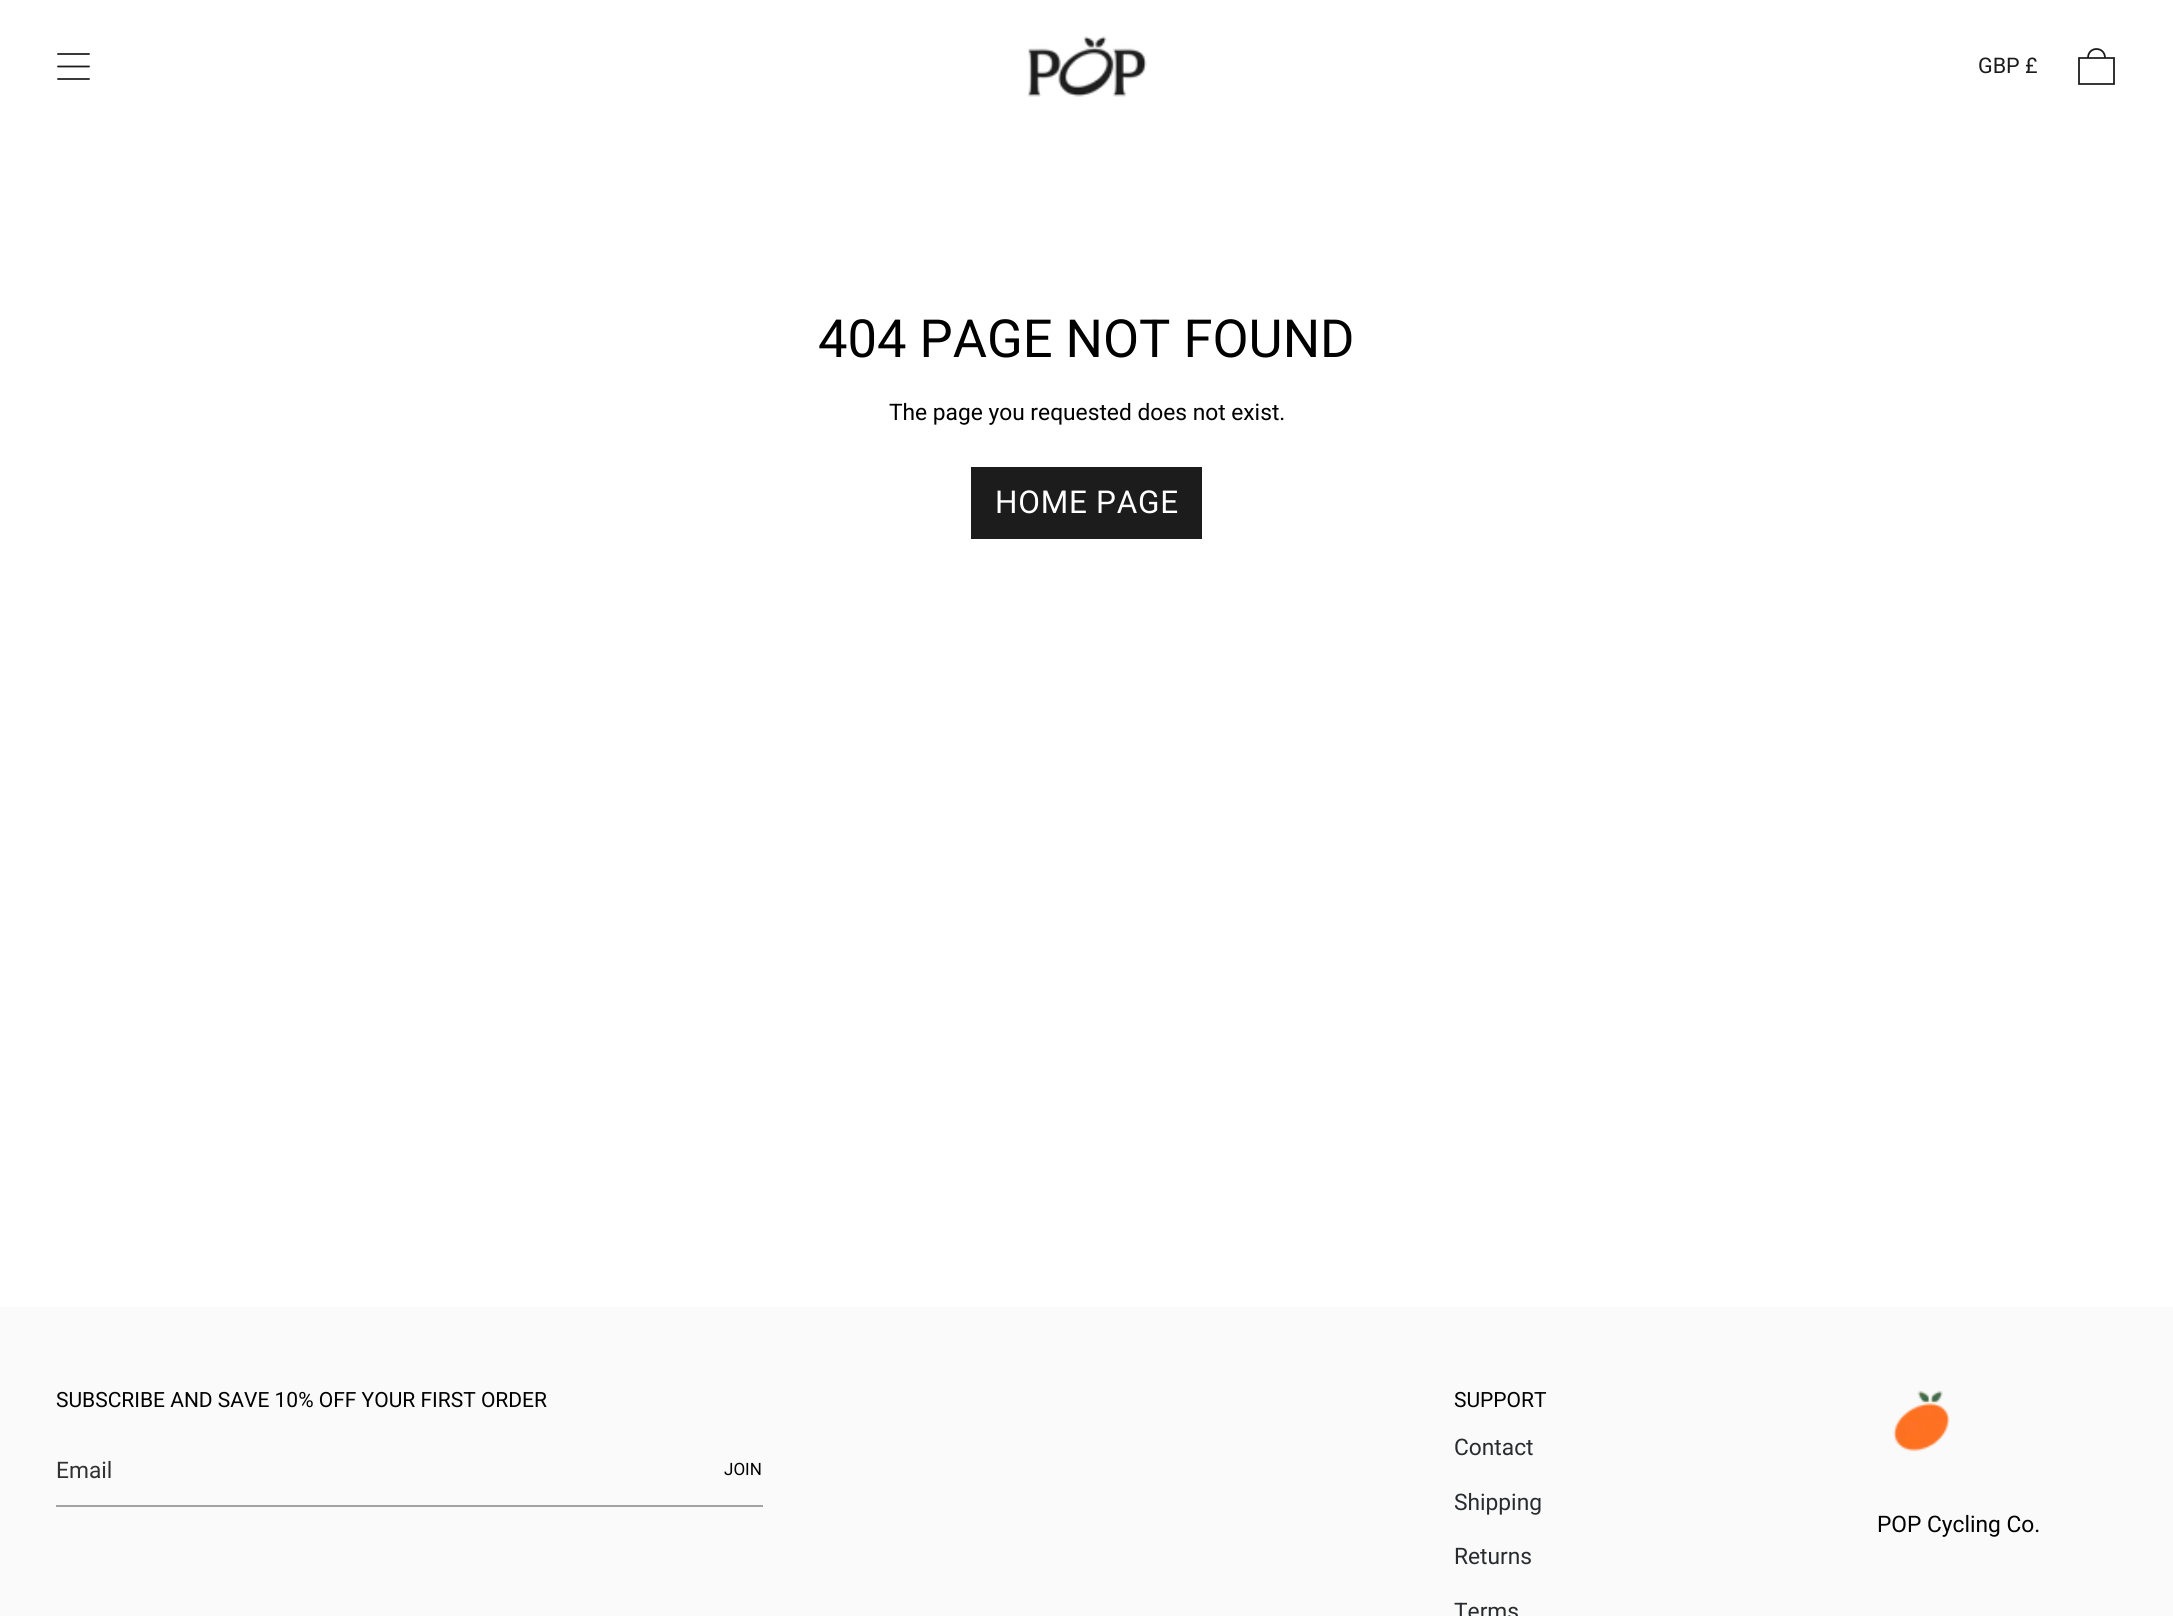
#include <cairo.h>
#include <math.h>
#include <stddef.h>


static void rgb(cairo_t *cr, int r, int g, int b)
{
	cairo_set_source_rgb(cr, r / 255.0, g / 255.0, b / 255.0);
}

static void face(cairo_t *cr, const char *family, double size, int italic, int bold)
{
	cairo_select_font_face(cr, family, italic ? CAIRO_FONT_SLANT_ITALIC : CAIRO_FONT_SLANT_NORMAL,
		bold ? CAIRO_FONT_WEIGHT_BOLD : CAIRO_FONT_WEIGHT_NORMAL);
	cairo_set_font_size(cr, size);
}

static void label(cairo_t *cr, double x, double y, const char *s)
{
	cairo_move_to(cr, x, y);
	cairo_show_text(cr, s);
}

static void tracked(cairo_t *cr, double x, double y, const char *s, double letter, double word)
{
	cairo_move_to(cr, x, y);
	while (*s) {
		char ch[5] = {0};
		int n = 0;
		do ch[n++] = *s++; while ((*s & 0xC0) == 0x80);
		cairo_show_text(cr, ch);
		cairo_rel_move_to(cr, letter + word * (*ch == ' '), 0);
	}
}

static void rect(cairo_t *cr, double x, double y, double w, double h)
{
	cairo_rectangle(cr, x, y, w, h);
	cairo_fill(cr);
}

static void image(cairo_t *cr, const char *path, double x, double y, double w, double h)
{
	cairo_surface_t *image = cairo_image_surface_create_from_png(path);
	cairo_save(cr);
	cairo_set_source_surface(cr, image, x, y);
	cairo_rectangle(cr, x, y, w, h);
	cairo_fill(cr);
	cairo_restore(cr);
	cairo_surface_destroy(image);
}

static void draw(cairo_t *cr) {
	rgb(cr, 255, 255, 255);
	cairo_paint(cr);
	cairo_new_path(cr);
	cairo_move_to(cr, 58, 54);
	cairo_line_to(cr, 89, 54);
	cairo_move_to(cr, 58, 66.5);
	cairo_line_to(cr, 89, 66.5);
	cairo_move_to(cr, 58, 79);
	cairo_line_to(cr, 89, 79);
	rgb(cr, 28, 28, 28);
	cairo_set_line_width(cr, 1.8);
	cairo_set_line_cap(cr, CAIRO_LINE_CAP_ROUND);
	cairo_set_line_join(cr, CAIRO_LINE_JOIN_ROUND);
	cairo_stroke(cr);
	image(cr, "image0.png", 1027, 36, 120, 61);
	face(cr, "Roboto", 21.5, 0, 0);
	label(cr, 1978, 73, "GBP £");
	cairo_new_path(cr);
	cairo_move_to(cr, 2079, 58);
	cairo_line_to(cr, 2114, 58);
	cairo_line_to(cr, 2114, 84);
	cairo_line_to(cr, 2079, 84);
	cairo_close_path(cr);
	cairo_move_to(cr, 2105, 58);
	cairo_curve_to(cr, 2105, 46, 2088, 46, 2088, 58);
	cairo_set_line_cap(cr, CAIRO_LINE_CAP_BUTT);
	cairo_set_line_join(cr, CAIRO_LINE_JOIN_MITER);
	cairo_stroke(cr);
	face(cr, "Roboto", 52.5, 0, 0);
	rgb(cr, 0, 0, 0);
	label(cr, 818, 357, "404 PAGE NOT FOUND");
	face(cr, "Roboto", 22.75, 0, 0);
	label(cr, 889, 420, "The page you requested does not exist.");
	rgb(cr, 28, 28, 28);
	rect(cr, 971, 467, 231, 72);
	face(cr, "Roboto", 31.5, 0, 0);
	rgb(cr, 255, 255, 255);
	tracked(cr, 995, 513, "HOME PAGE", 0.75, 0);
	rgb(cr, 250, 250, 250);
	rect(cr, 0, 1307, 2173, 309);
	face(cr, "Roboto", 21, 0, 0);
	rgb(cr, 0, 0, 0);
	label(cr, 56, 1407, "SUBSCRIBE AND SAVE 10% OFF YOUR FIRST ORDER");
	rgb(cr, 163, 163, 163);
	rect(cr, 56, 1505, 707, 2);
	face(cr, "Roboto", 22.75, 0, 0);
	rgb(cr, 50, 50, 50);
	label(cr, 56, 1478, "Email");
	face(cr, "Roboto", 17, 0, 0);
	rgb(cr, 0, 0, 0);
	label(cr, 724, 1475, "JOIN");
	face(cr, "Roboto", 21, 0, 0);
	label(cr, 1454, 1407, "SUPPORT");
	face(cr, "Roboto", 22.75, 0, 0);
	rgb(cr, 40, 44, 46);
	label(cr, 1454, 1455, "Contact");
	label(cr, 1454, 1510, "Shipping");
	label(cr, 1454, 1564, "Returns");
	label(cr, 1454, 1619, "Terms");
	image(cr, "image1.png", 1893, 1390, 57, 62);
	rgb(cr, 0, 0, 0);
	label(cr, 1877, 1532, "POP Cycling Co.");
}

int main(void) {
	cairo_surface_t *surface = cairo_image_surface_create(CAIRO_FORMAT_RGB24, 2173, 1616);
	cairo_t *cr = cairo_create(surface);
	cairo_font_options_t *options = cairo_font_options_create();
	cairo_font_options_set_hint_metrics(options, CAIRO_HINT_METRICS_OFF);
	cairo_font_options_set_hint_style(options, CAIRO_HINT_STYLE_NONE);
	cairo_set_font_options(cr, options);
	cairo_set_miter_limit(cr, 4);
	draw(cr);
	cairo_surface_write_to_png(surface, "render.png");
	cairo_font_options_destroy(options);
	cairo_destroy(cr);
	cairo_surface_destroy(surface);
	return 0;
}
